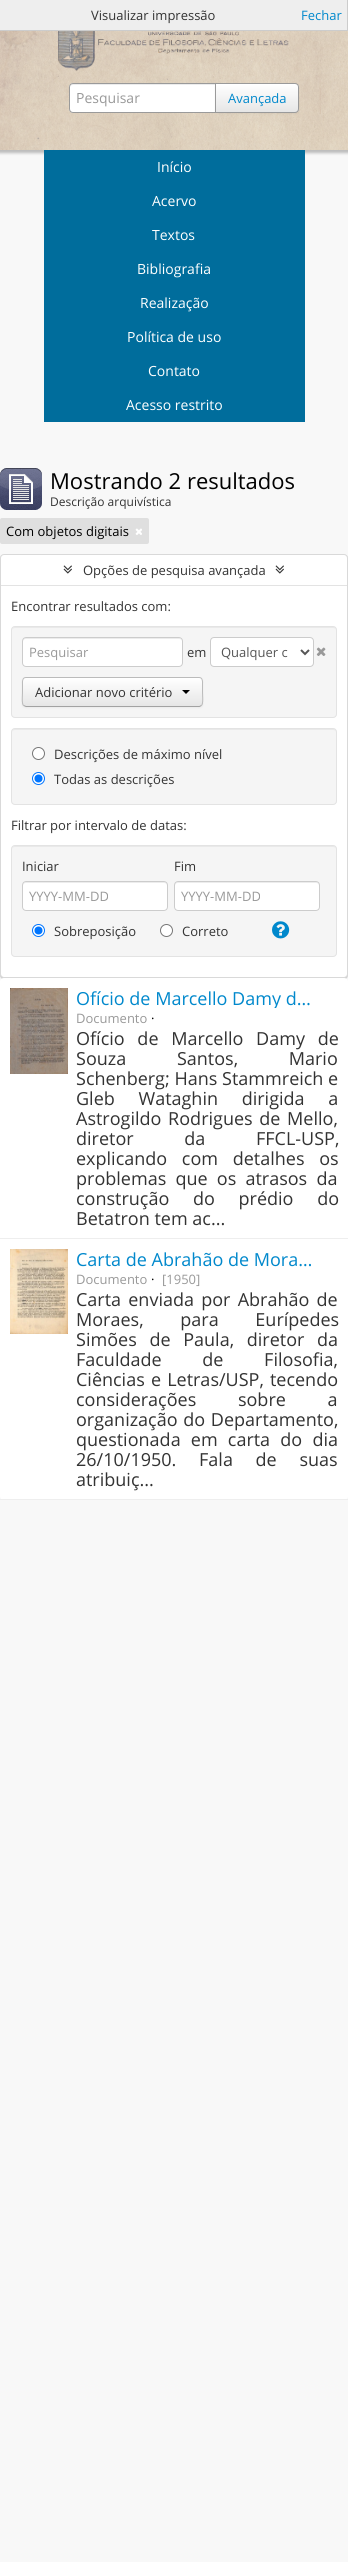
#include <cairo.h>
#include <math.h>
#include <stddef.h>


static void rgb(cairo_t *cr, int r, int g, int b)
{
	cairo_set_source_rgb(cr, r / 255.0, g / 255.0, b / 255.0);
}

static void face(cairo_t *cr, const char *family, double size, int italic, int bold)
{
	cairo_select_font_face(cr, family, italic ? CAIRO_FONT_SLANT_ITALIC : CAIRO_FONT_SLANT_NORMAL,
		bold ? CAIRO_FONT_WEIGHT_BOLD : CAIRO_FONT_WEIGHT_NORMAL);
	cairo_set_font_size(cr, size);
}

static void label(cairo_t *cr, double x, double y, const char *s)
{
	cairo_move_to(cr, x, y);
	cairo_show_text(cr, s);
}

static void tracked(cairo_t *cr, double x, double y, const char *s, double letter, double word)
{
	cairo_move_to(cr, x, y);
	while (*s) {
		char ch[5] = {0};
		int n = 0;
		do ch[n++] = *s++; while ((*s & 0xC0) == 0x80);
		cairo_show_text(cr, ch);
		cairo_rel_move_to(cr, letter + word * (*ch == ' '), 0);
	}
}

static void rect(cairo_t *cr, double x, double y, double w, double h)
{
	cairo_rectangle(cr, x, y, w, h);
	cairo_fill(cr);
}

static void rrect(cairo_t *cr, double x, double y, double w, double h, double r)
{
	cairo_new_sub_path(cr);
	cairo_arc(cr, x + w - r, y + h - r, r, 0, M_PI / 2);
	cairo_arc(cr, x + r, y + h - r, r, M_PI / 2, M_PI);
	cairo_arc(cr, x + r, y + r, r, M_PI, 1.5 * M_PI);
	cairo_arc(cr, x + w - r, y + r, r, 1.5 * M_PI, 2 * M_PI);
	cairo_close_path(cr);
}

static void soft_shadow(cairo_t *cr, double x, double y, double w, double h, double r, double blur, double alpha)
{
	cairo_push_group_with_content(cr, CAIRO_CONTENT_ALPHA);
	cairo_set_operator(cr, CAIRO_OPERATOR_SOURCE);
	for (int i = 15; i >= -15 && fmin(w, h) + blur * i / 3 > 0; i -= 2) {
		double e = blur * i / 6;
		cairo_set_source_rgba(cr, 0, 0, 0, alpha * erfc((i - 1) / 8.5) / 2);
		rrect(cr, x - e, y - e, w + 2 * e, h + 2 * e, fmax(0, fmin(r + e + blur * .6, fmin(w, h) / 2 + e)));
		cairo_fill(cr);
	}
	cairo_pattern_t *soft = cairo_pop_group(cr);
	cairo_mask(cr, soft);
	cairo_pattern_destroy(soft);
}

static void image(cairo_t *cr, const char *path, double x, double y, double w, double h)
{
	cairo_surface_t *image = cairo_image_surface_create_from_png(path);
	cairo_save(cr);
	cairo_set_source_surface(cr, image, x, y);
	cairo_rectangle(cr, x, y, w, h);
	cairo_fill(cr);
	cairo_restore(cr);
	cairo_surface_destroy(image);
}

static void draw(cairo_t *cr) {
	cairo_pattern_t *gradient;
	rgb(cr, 248, 248, 248);
	cairo_paint(cr);
	rgb(cr, 0, 0, 0);
	soft_shadow(cr, -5, 3, 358, 150, 0, 1.5, 0.25);
	rgb(cr, 238, 238, 238);
	rect(cr, 0, 0, 347, 30);
	rgb(cr, 204, 204, 204);
	rect(cr, 347, 0, 1, 31);
	rect(cr, 0, 30, 348, 1);
	face(cr, "Open Sans", 13, 0, 0);
	rgb(cr, 51, 51, 51);
	label(cr, 91, 20, "Visualizar impressão");
	rgb(cr, 0, 136, 204);
	label(cr, 301, 20, "Fechar");
	image(cr, "image0.png", 0, 468, 42, 42);
	face(cr, "Open Sans", 22, 0, 0);
	rgb(cr, 0, 0, 0);
	label(cr, 50, 489, "Mostrando 2 resultados");
	face(cr, "Open Sans", 12, 0, 0);
	rgb(cr, 51, 51, 51);
	label(cr, 50, 506, "Descrição arquivística");
	rgb(cr, 223, 223, 223);
	rrect(cr, 0, 518, 149, 26, 2);
	cairo_fill(cr);
	face(cr, "Open Sans", 13, 0, 0);
	rgb(cr, 0, 0, 0);
	label(cr, 6, 536, "Com objetos digitais");
	image(cr, "image1.png", 135, 528, 7, 7);
	rgb(cr, 0, 0, 0);
	soft_shadow(cr, 0, 555, 348, 424, 4, 0.5, 0.2);
	rgb(cr, 255, 255, 255);
	rrect(cr, 0.5, 554.5, 347, 423, 3.5);
	cairo_fill_preserve(cr);
	rgb(cr, 217, 217, 217);
	cairo_set_line_width(cr, 1);
	cairo_stroke(cr);
	image(cr, "image2.png", 63, 565, 9, 9);
	rgb(cr, 51, 51, 51);
	label(cr, 83, 575, "Opções de pesquisa avançada");
	image(cr, "image2.png", 275, 565, 9, 9);
	rgb(cr, 227, 227, 227);
	rect(cr, 1, 585, 346, 1);
	rgb(cr, 51, 51, 51);
	label(cr, 11, 611, "Encontrar resultados com:");
	rgb(cr, 245, 245, 245);
	rrect(cr, 11, 626, 326, 92, 4);
	cairo_fill(cr);
	rgb(cr, 233, 233, 233);
	cairo_new_path(cr);
	cairo_move_to(cr, 15, 628);
	cairo_line_to(cr, 333, 628);
	cairo_curve_to(cr, 335, 628, 336, 629, 336, 631);
	cairo_curve_to(cr, 336, 629, 335, 627, 333, 627);
	cairo_line_to(cr, 15, 627);
	cairo_curve_to(cr, 13, 627, 12, 629, 12, 631);
	cairo_curve_to(cr, 12, 629, 13, 628, 15, 628);
	cairo_close_path(cr);
	cairo_fill(cr);
	rrect(cr, 11.5, 626.5, 325, 91, 3.5);
	rgb(cr, 227, 227, 227);
	cairo_stroke(cr);
	rgb(cr, 255, 255, 255);
	rrect(cr, 22, 637, 161, 30, 4);
	cairo_fill(cr);
	rgb(cr, 236, 236, 236);
	cairo_new_path(cr);
	cairo_move_to(cr, 26, 639);
	cairo_line_to(cr, 179, 639);
	cairo_curve_to(cr, 181, 639, 182, 640, 182, 642);
	cairo_curve_to(cr, 182, 640, 181, 638, 179, 638);
	cairo_line_to(cr, 25, 638);
	cairo_curve_to(cr, 23, 638, 23, 640, 23, 642);
	cairo_curve_to(cr, 23, 640, 24, 639, 26, 639);
	cairo_close_path(cr);
	cairo_fill(cr);
	rrect(cr, 22.5, 637.5, 160, 29, 3.5);
	rgb(cr, 204, 204, 204);
	cairo_stroke(cr);
	rgb(cr, 153, 153, 153);
	label(cr, 29, 657, "Pesquisar");
	rgb(cr, 51, 51, 51);
	label(cr, 187, 657, "em");
	rgb(cr, 255, 255, 255);
	rrect(cr, 210.5, 637.5, 103, 29, 3.5);
	cairo_fill_preserve(cr);
	rgb(cr, 204, 204, 204);
	cairo_stroke(cr);
	cairo_new_path(cr);
	cairo_move_to(cr, 301, 650);
	cairo_line_to(cr, 305, 654);
	cairo_line_to(cr, 309, 650);
	rgb(cr, 85, 85, 85);
	cairo_set_line_width(cr, 2);
	cairo_stroke(cr);
	label(cr, 221, 657, "Qualquer c");
	image(cr, "image3.png", 316, 647, 10, 9);
	rgb(cr, 0, 0, 0);
	soft_shadow(cr, 22, 678, 181, 30, 4, 1, 0.05);
	rgb(cr, 245, 245, 245);
	rrect(cr, 22, 677, 181, 30, 4);
	cairo_fill(cr);
	cairo_save(cr);
	rrect(cr, 22, 677, 181, 30, 4);
	cairo_clip(cr);
	gradient = cairo_pattern_create_linear(113, 678, 113, 706);
	cairo_pattern_add_color_stop_rgba(gradient, 0, 1, 1, 1, 1);
	cairo_pattern_add_color_stop_rgba(gradient, 1, 0.902, 0.902, 0.902, 1);
	cairo_set_source(cr, gradient);
	cairo_pattern_destroy(gradient);
	rect(cr, 22, 678, 181, 28);
	cairo_restore(cr);
	cairo_new_path(cr);
	cairo_move_to(cr, 201.5, 705.5);
	cairo_line_to(cr, 199.5, 706.5);
	cairo_line_to(cr, 55, 706.5);
	cairo_line_to(cr, 26, 706.5);
	cairo_line_to(cr, 23.5, 705.5);
	rgb(cr, 162, 162, 162);
	cairo_set_line_width(cr, 1);
	cairo_stroke(cr);
	cairo_new_path(cr);
	cairo_move_to(cr, 23.5, 705.5);
	cairo_curve_to(cr, 21.5, 703.5, 22.5, 695, 22.5, 692);
	cairo_line_to(cr, 22.5, 684.5);
	cairo_curve_to(cr, 22.5, 682, 22, 677.5, 26, 677.5);
	cairo_line_to(cr, 199, 677.5);
	cairo_curve_to(cr, 203, 677.5, 202.5, 682, 202.5, 684.5);
	cairo_line_to(cr, 202.5, 692);
	cairo_curve_to(cr, 202.5, 695, 203.5, 703.5, 201.5, 705.5);
	rgb(cr, 187, 187, 187);
	cairo_stroke(cr);
	rgb(cr, 51, 51, 51);
	label(cr, 35, 697, "Adicionar novo critério");
	rgb(cr, 0, 0, 0);
	cairo_new_path(cr);
	cairo_move_to(cr, 182, 690);
	cairo_line_to(cr, 190, 690);
	cairo_line_to(cr, 186, 694);
	cairo_close_path(cr);
	cairo_fill(cr);
	rgb(cr, 245, 245, 245);
	rrect(cr, 11, 728, 326, 77, 4);
	cairo_fill(cr);
	rgb(cr, 233, 233, 233);
	cairo_new_path(cr);
	cairo_move_to(cr, 15, 730);
	cairo_line_to(cr, 333, 730);
	cairo_curve_to(cr, 335, 730, 336, 731, 336, 733);
	cairo_curve_to(cr, 336, 731, 335, 729, 333, 729);
	cairo_line_to(cr, 15, 729);
	cairo_curve_to(cr, 13, 729, 12, 731, 12, 733);
	cairo_curve_to(cr, 12, 731, 13, 730, 15, 730);
	cairo_close_path(cr);
	cairo_fill(cr);
	rrect(cr, 11.5, 728.5, 325, 76, 3.5);
	rgb(cr, 227, 227, 227);
	cairo_stroke(cr);
	rgb(cr, 255, 255, 255);
	cairo_arc(cr, 38.5, 753.5, 6, 0, 2 * M_PI);
	cairo_fill_preserve(cr);
	rgb(cr, 118, 118, 118);
	cairo_stroke(cr);
	rgb(cr, 51, 51, 51);
	label(cr, 54, 759, "Descrições de máximo nível");
	rgb(cr, 255, 255, 255);
	cairo_new_path(cr);
	cairo_arc(cr, 38.5, 778.5, 6, 0, 2 * M_PI);
	cairo_fill_preserve(cr);
	rgb(cr, 0, 117, 255);
	cairo_stroke(cr);
	cairo_arc(cr, 38.5, 778.5, 4, 0, 2 * M_PI);
	cairo_fill(cr);
	rgb(cr, 51, 51, 51);
	label(cr, 54, 784, "Todas as descrições");
	label(cr, 11, 830, "Filtrar por intervalo de datas:");
	rgb(cr, 245, 245, 245);
	rrect(cr, 11, 845, 326, 112, 4);
	cairo_fill(cr);
	rgb(cr, 233, 233, 233);
	cairo_new_path(cr);
	cairo_move_to(cr, 15, 847);
	cairo_line_to(cr, 333, 847);
	cairo_curve_to(cr, 335, 847, 336, 848, 336, 850);
	cairo_curve_to(cr, 336, 848, 335, 846, 333, 846);
	cairo_line_to(cr, 15, 846);
	cairo_curve_to(cr, 13, 846, 12, 848, 12, 850);
	cairo_curve_to(cr, 12, 848, 13, 847, 15, 847);
	cairo_close_path(cr);
	cairo_fill(cr);
	rrect(cr, 11.5, 845.5, 325, 111, 3.5);
	rgb(cr, 227, 227, 227);
	cairo_stroke(cr);
	rgb(cr, 51, 51, 51);
	label(cr, 22, 871, "Iniciar");
	rgb(cr, 255, 255, 255);
	rrect(cr, 22, 881, 146, 30, 4);
	cairo_fill(cr);
	rgb(cr, 236, 236, 236);
	cairo_new_path(cr);
	cairo_move_to(cr, 26, 883);
	cairo_line_to(cr, 164, 883);
	cairo_curve_to(cr, 166, 883, 167, 884, 167, 886);
	cairo_line_to(cr, 167, 885);
	cairo_curve_to(cr, 167, 883, 166, 882, 164, 882);
	cairo_line_to(cr, 26, 882);
	cairo_curve_to(cr, 24, 882, 23, 883, 23, 885);
	cairo_line_to(cr, 23, 886);
	cairo_curve_to(cr, 23, 884, 24, 883, 26, 883);
	cairo_close_path(cr);
	cairo_fill(cr);
	rrect(cr, 22.5, 881.5, 145, 29, 3.5);
	rgb(cr, 204, 204, 204);
	cairo_stroke(cr);
	rgb(cr, 153, 153, 153);
	label(cr, 29, 901, "YYYY-MM-DD");
	rgb(cr, 51, 51, 51);
	label(cr, 174, 871, "Fim");
	rgb(cr, 255, 255, 255);
	rrect(cr, 174, 881, 146, 30, 4);
	cairo_fill(cr);
	rgb(cr, 236, 236, 236);
	cairo_new_path(cr);
	cairo_move_to(cr, 178, 883);
	cairo_line_to(cr, 316, 883);
	cairo_curve_to(cr, 318, 883, 319, 884, 319, 886);
	cairo_line_to(cr, 319, 885);
	cairo_curve_to(cr, 319, 883, 318, 882, 316, 882);
	cairo_line_to(cr, 178, 882);
	cairo_curve_to(cr, 176, 882, 175, 883, 175, 885);
	cairo_line_to(cr, 175, 886);
	cairo_curve_to(cr, 175, 884, 176, 883, 178, 883);
	cairo_close_path(cr);
	cairo_fill(cr);
	rrect(cr, 174.5, 881.5, 145, 29, 3.5);
	rgb(cr, 204, 204, 204);
	cairo_stroke(cr);
	rgb(cr, 153, 153, 153);
	label(cr, 181, 901, "YYYY-MM-DD");
	rgb(cr, 255, 255, 255);
	cairo_new_path(cr);
	cairo_arc(cr, 38.5, 930.5, 6, 0, 2 * M_PI);
	cairo_fill_preserve(cr);
	rgb(cr, 0, 117, 255);
	cairo_stroke(cr);
	cairo_arc(cr, 38.5, 930.5, 4, 0, 2 * M_PI);
	cairo_fill(cr);
	rgb(cr, 51, 51, 51);
	label(cr, 54, 936, "Sobreposição");
	rgb(cr, 255, 255, 255);
	cairo_new_path(cr);
	cairo_arc(cr, 166.5, 930.5, 6, 0, 2 * M_PI);
	cairo_fill_preserve(cr);
	rgb(cr, 118, 118, 118);
	cairo_stroke(cr);
	rgb(cr, 51, 51, 51);
	label(cr, 182, 936, "Correto");
	image(cr, "image4.png", 272, 921, 18, 18);
	rgb(cr, 255, 255, 255);
	rrect(cr, 0, 978, 348, 522, 4);
	cairo_fill(cr);
	rgb(cr, 238, 238, 238);
	rect(cr, 0, 1238, 348, 1);
	image(cr, "image5.png", 10, 988, 58, 86);
	cairo_save(cr);
	cairo_rectangle(cr, 76, 988, 237, 20);
	cairo_clip(cr);
	face(cr, "Open Sans", 18, 0, 0);
	rgb(cr, 0, 136, 204);
	label(cr, 76, 1005, "Ofício de Marcello Damy d…");
	cairo_restore(cr);
	rgb(cr, 153, 153, 153);
	label(cr, 76, 1023, "Documento");
	rgb(cr, 0, 0, 0);
	label(cr, 151, 1023, "·");
	face(cr, "Open Sans", 18, 0, 0);
	rgb(cr, 51, 51, 51);
	tracked(cr, 76, 1045, "Ofício de Marcello Damy de", 0, 8);
	tracked(cr, 76, 1065, "Souza Santos, Mario", 0, 46);
	label(cr, 76, 1085, "Schenberg; Hans Stammreich e");
	tracked(cr, 76, 1105, "Gleb Wataghin dirigida a", 0, 19);
	tracked(cr, 76, 1125, "Astrogildo Rodrigues de Mello,", 0, 2);
	tracked(cr, 76, 1145, "diretor da FFCL-USP,", 0, 46);
	tracked(cr, 76, 1165, "explicando com detalhes os", 0, 10);
	tracked(cr, 76, 1185, "problemas que os atrasos da", 0, 4.5);
	tracked(cr, 76, 1205, "construção do prédio do", 0, 19);
	label(cr, 76, 1225, "Betatron tem ac...");
	rgb(cr, 238, 238, 238);
	rect(cr, 0, 1499, 348, 1);
	image(cr, "image6.png", 10, 1249, 58, 85);
	rgb(cr, 0, 136, 204);
	label(cr, 76, 1266, "Carta de Abrahão de Mora…");
	face(cr, "Open Sans", 13, 0, 0);
	rgb(cr, 153, 153, 153);
	label(cr, 76, 1284, "Documento");
	rgb(cr, 0, 0, 0);
	label(cr, 151, 1284, "·");
	rgb(cr, 153, 153, 153);
	label(cr, 162, 1284, "[1950]");
	face(cr, "Open Sans", 18, 0, 0);
	rgb(cr, 51, 51, 51);
	tracked(cr, 76, 1306, "Carta enviada por Abrahão de", 0, 2.5);
	tracked(cr, 76, 1326, "Moraes, para Eurípedes", 0, 32);
	tracked(cr, 76, 1346, "Simões de Paula, diretor da", 0, 8);
	tracked(cr, 76, 1366, "Faculdade de Filosofia,", 0, 36);
	tracked(cr, 76, 1386, "Ciências e Letras/USP, tecendo", 0, 1.5);
	tracked(cr, 76, 1406, "considerações sobre a", 0, 37);
	tracked(cr, 76, 1426, "organização do Departamento,", 0, 1);
	tracked(cr, 76, 1446, "questionada em carta do dia", 0, 5.5);
	tracked(cr, 76, 1466, "26/10/1950. Fala de suas", 0, 18);
	label(cr, 76, 1486, "atribuiç...");
	image(cr, "image7.png", 0, 31, 348, 119);
	image(cr, "image8.png", 58, 31, 231, 40);
	rgb(cr, 255, 255, 255);
	cairo_new_path(cr);
	cairo_move_to(cr, 73, 83);
	cairo_line_to(cr, 216, 83);
	cairo_line_to(cr, 216, 113);
	cairo_line_to(cr, 73, 113);
	cairo_curve_to(cr, 71, 113, 69, 111, 69, 109);
	cairo_line_to(cr, 69, 87);
	cairo_curve_to(cr, 69, 85, 71, 83, 73, 83);
	cairo_close_path(cr);
	cairo_fill(cr);
	rgb(cr, 236, 236, 236);
	cairo_new_path(cr);
	cairo_move_to(cr, 73, 85);
	cairo_line_to(cr, 215, 85);
	cairo_line_to(cr, 215, 84);
	cairo_line_to(cr, 73, 84);
	cairo_curve_to(cr, 71, 84, 70, 86, 70, 88);
	cairo_curve_to(cr, 70, 86, 71, 85, 73, 85);
	cairo_close_path(cr);
	cairo_fill(cr);
	cairo_new_path(cr);
	cairo_move_to(cr, 73, 83.5);
	cairo_line_to(cr, 215.5, 83.5);
	cairo_line_to(cr, 215.5, 112.5);
	cairo_line_to(cr, 73, 112.5);
	cairo_curve_to(cr, 71, 112.5, 69.5, 111, 69.5, 109);
	cairo_line_to(cr, 69.5, 87);
	cairo_curve_to(cr, 69.5, 85, 71, 83.5, 73, 83.5);
	cairo_close_path(cr);
	rgb(cr, 154, 154, 154);
	cairo_stroke(cr);
	face(cr, "Open Sans", 14, 0, 0);
	rgb(cr, 153, 153, 153);
	label(cr, 76, 103, "Pesquisar");
	rgb(cr, 0, 0, 0);
	soft_shadow(cr, 215, 84, 84, 30, 4, 1, 0.05);
	cairo_save(cr);
	cairo_new_path(cr);
	cairo_move_to(cr, 215, 83);
	cairo_line_to(cr, 295, 83);
	cairo_curve_to(cr, 297, 83, 299, 85, 299, 87);
	cairo_line_to(cr, 299, 109);
	cairo_curve_to(cr, 299, 111, 297, 113, 295, 113);
	cairo_line_to(cr, 215, 113);
	cairo_close_path(cr);
	cairo_clip(cr);
	gradient = cairo_pattern_create_linear(257, 84, 257, 112);
	cairo_pattern_add_color_stop_rgba(gradient, 0, 1, 1, 1, 1);
	cairo_pattern_add_color_stop_rgba(gradient, 1, 0.902, 0.902, 0.902, 1);
	cairo_set_source(cr, gradient);
	cairo_pattern_destroy(gradient);
	rect(cr, 216, 84, 83, 28);
	cairo_restore(cr);
	cairo_new_path(cr);
	cairo_move_to(cr, 215.5, 83.5);
	cairo_line_to(cr, 295, 83.5);
	cairo_curve_to(cr, 297, 83.5, 298.5, 85, 298.5, 87);
	cairo_line_to(cr, 298.5, 109);
	cairo_curve_to(cr, 298.5, 111, 297, 112.5, 295, 112.5);
	cairo_line_to(cr, 215.5, 112.5);
	cairo_close_path(cr);
	rgb(cr, 154, 154, 154);
	cairo_stroke(cr);
	face(cr, "Open Sans", 13, 0, 0);
	rgb(cr, 0, 136, 204);
	label(cr, 228, 103, "Avançada");
	rgb(cr, 0, 109, 156);
	rect(cr, 44, 150, 261, 272);
	face(cr, "Open Sans", 14, 0, 0);
	rgb(cr, 255, 255, 255);
	label(cr, 157, 172, "Início");
	label(cr, 152, 206, "Acervo");
	label(cr, 152, 240, "Textos");
	label(cr, 137, 274, "Bibliografia");
	label(cr, 140, 308, "Realização");
	label(cr, 127, 342, "Política de uso");
	label(cr, 148, 376, "Contato");
	label(cr, 126, 410, "Acesso restrito");
}

int main(void) {
	cairo_surface_t *surface = cairo_image_surface_create(CAIRO_FORMAT_RGB24, 348, 2562);
	cairo_t *cr = cairo_create(surface);
	cairo_font_options_t *options = cairo_font_options_create();
	cairo_font_options_set_hint_metrics(options, CAIRO_HINT_METRICS_OFF);
	cairo_font_options_set_hint_style(options, CAIRO_HINT_STYLE_NONE);
	cairo_set_font_options(cr, options);
	cairo_set_miter_limit(cr, 4);
	draw(cr);
	cairo_surface_write_to_png(surface, "render.png");
	cairo_font_options_destroy(options);
	cairo_destroy(cr);
	cairo_surface_destroy(surface);
	return 0;
}
